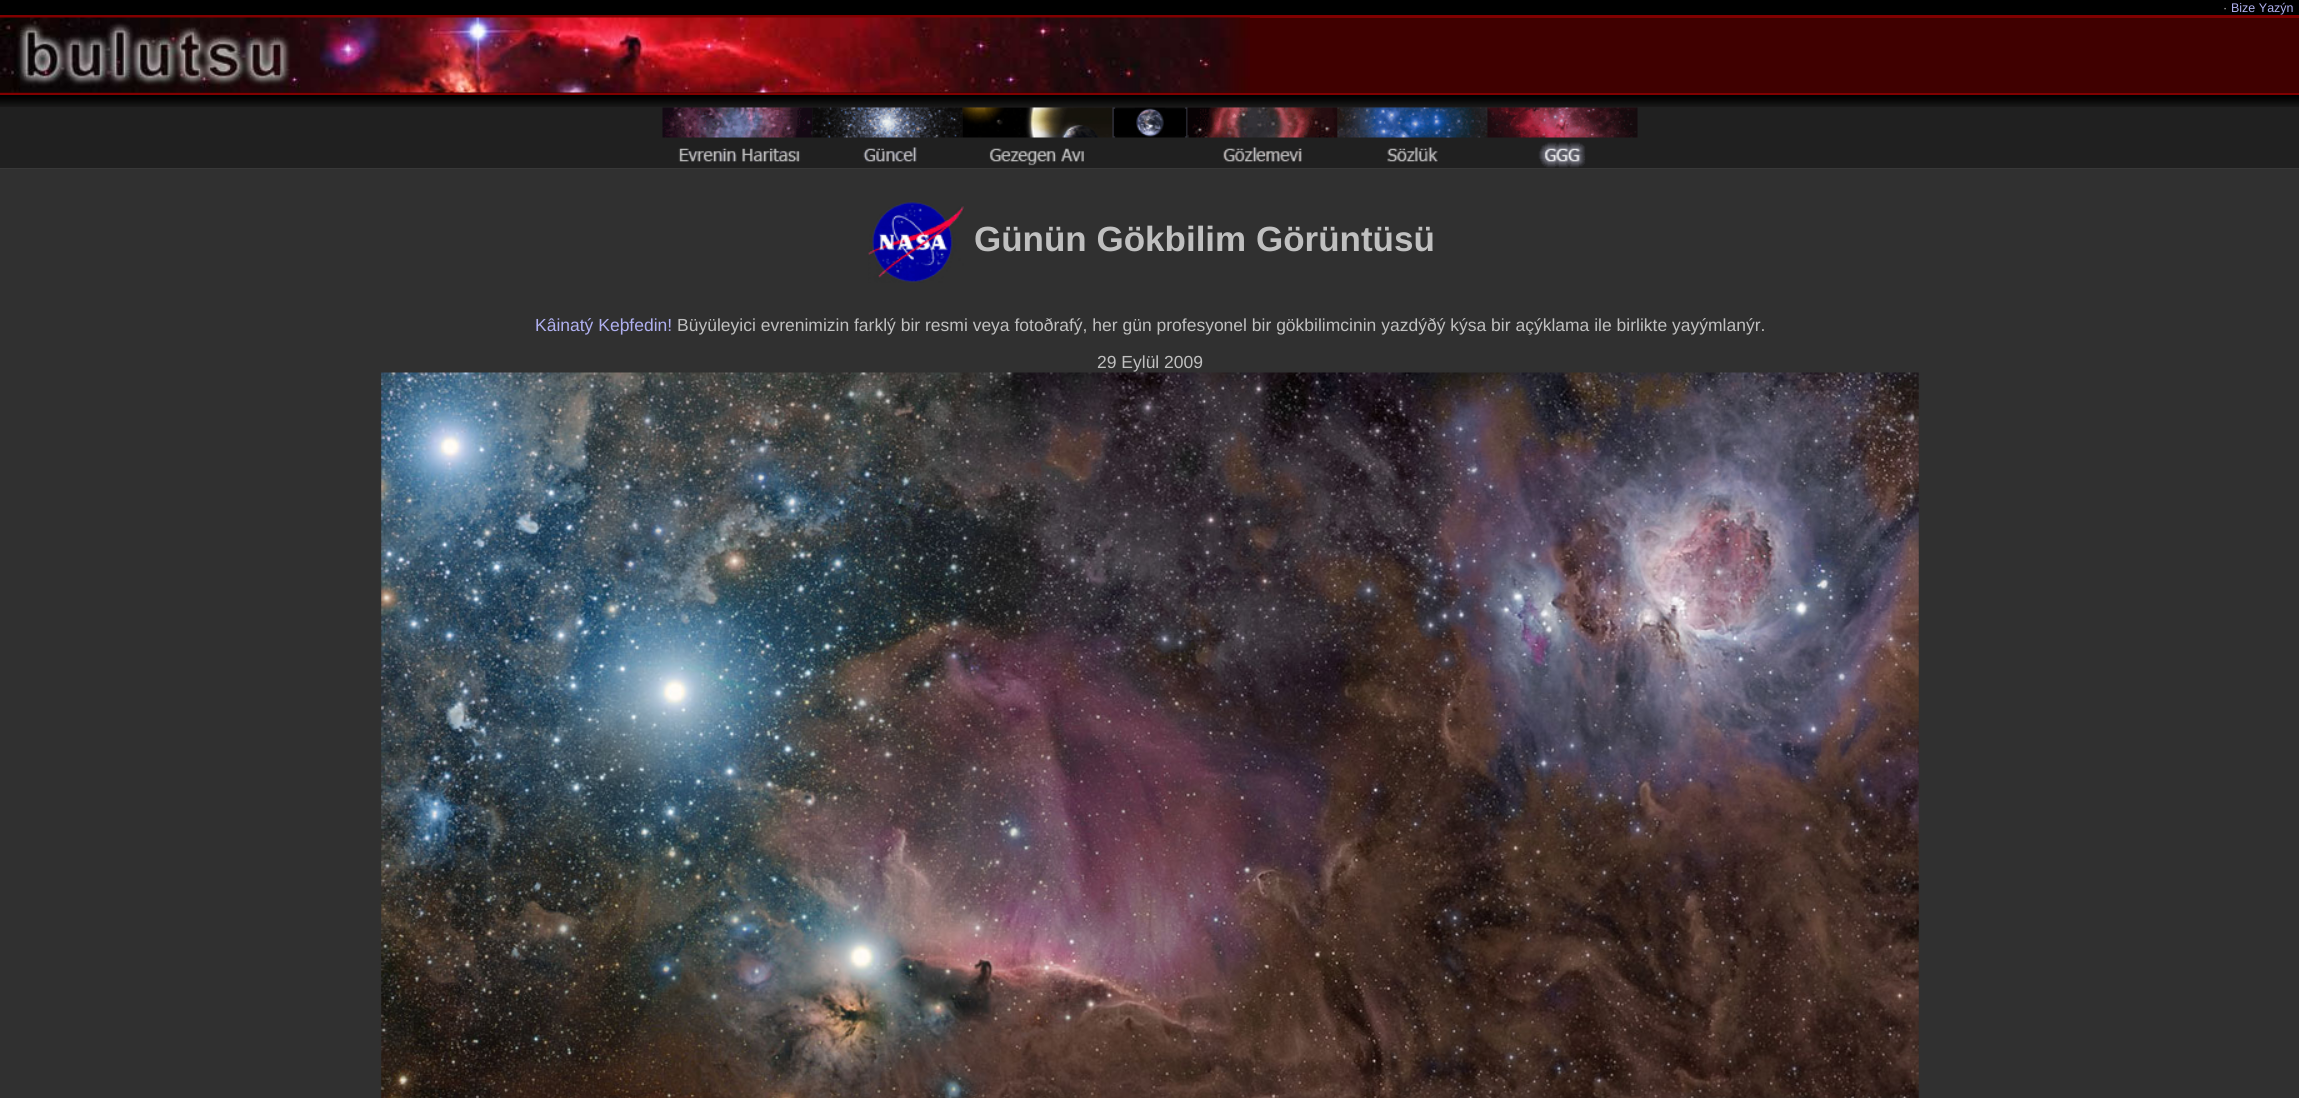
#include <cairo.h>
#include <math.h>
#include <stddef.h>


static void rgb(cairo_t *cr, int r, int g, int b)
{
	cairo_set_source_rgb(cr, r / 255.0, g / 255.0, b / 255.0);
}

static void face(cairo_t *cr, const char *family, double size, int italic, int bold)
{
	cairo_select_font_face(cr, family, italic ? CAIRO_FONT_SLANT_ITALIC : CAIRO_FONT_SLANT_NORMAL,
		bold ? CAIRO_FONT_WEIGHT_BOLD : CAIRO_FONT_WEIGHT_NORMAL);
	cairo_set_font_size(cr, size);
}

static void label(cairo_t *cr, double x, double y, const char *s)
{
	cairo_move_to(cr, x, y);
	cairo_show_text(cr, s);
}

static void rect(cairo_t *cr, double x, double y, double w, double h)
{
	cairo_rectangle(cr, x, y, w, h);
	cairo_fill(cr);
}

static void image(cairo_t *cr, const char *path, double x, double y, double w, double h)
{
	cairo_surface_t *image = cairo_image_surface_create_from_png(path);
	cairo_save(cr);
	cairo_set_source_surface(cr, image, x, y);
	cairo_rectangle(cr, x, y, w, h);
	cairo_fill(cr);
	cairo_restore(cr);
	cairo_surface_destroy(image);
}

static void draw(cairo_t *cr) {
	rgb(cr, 48, 48, 48);
	cairo_paint(cr);
	rgb(cr, 0, 0, 0);
	rect(cr, 0, 0, 2299, 15);
	face(cr, "Liberation Sans", 12.5, 0, 0);
	rgb(cr, 192, 192, 192);
	label(cr, 2223, 12, "·");
	rgb(cr, 176, 176, 240);
	label(cr, 2231, 12, "Bize Yazýn");
	rgb(cr, 128, 0, 0);
	rect(cr, 0, 15, 2299, 3);
	rgb(cr, 64, 0, 0);
	rect(cr, 0, 18, 2299, 75);
	image(cr, "image0.png", 0, 17, 1250, 76);
	rgb(cr, 128, 0, 0);
	rect(cr, 0, 93, 2299, 2);
	rgb(cr, 32, 32, 32);
	rect(cr, 0, 107, 2299, 61);
	image(cr, "image1.png", 0, 95, 2299, 12);
	image(cr, "image2.png", 662, 107, 151, 55);
	image(cr, "image3.png", 812, 107, 151, 55);
	image(cr, "image4.png", 962, 107, 151, 59);
	image(cr, "image5.png", 1112, 107, 76, 31);
	image(cr, "image6.png", 1187, 107, 151, 55);
	image(cr, "image7.png", 1337, 107, 151, 55);
	image(cr, "image8.png", 1487, 107, 151, 61);
	rgb(cr, 56, 56, 56);
	rect(cr, 0, 168, 2299, 1);
	image(cr, "image9.png", 868, 201, 96, 82);
	face(cr, "Liberation Sans", 35, 0, 1);
	rgb(cr, 192, 192, 192);
	label(cr, 974, 251, "Günün Gökbilim Görüntüsü");
	face(cr, "Liberation Sans", 17.5, 0, 0);
	rgb(cr, 176, 176, 240);
	label(cr, 535, 331, "Kâinatý Keþfedin!");
	rgb(cr, 192, 192, 192);
	label(cr, 677, 331, "Büyüleyici evrenimizin farklý bir resmi veya fotoðrafý, her gün profesyonel bir gökbilimcinin yazdýðý kýsa bir açýklama ile birlikte yayýmlanýr.");
	label(cr, 1097, 368, "29 Eylül 2009");
	image(cr, "image10.png", 381, 372, 1538, 726);
}

int main(void) {
	cairo_surface_t *surface = cairo_image_surface_create(CAIRO_FORMAT_RGB24, 2299, 1098);
	cairo_t *cr = cairo_create(surface);
	cairo_font_options_t *options = cairo_font_options_create();
	cairo_font_options_set_hint_metrics(options, CAIRO_HINT_METRICS_OFF);
	cairo_font_options_set_hint_style(options, CAIRO_HINT_STYLE_NONE);
	cairo_set_font_options(cr, options);
	cairo_set_miter_limit(cr, 4);
	draw(cr);
	cairo_surface_write_to_png(surface, "render.png");
	cairo_font_options_destroy(options);
	cairo_destroy(cr);
	cairo_surface_destroy(surface);
	return 0;
}
